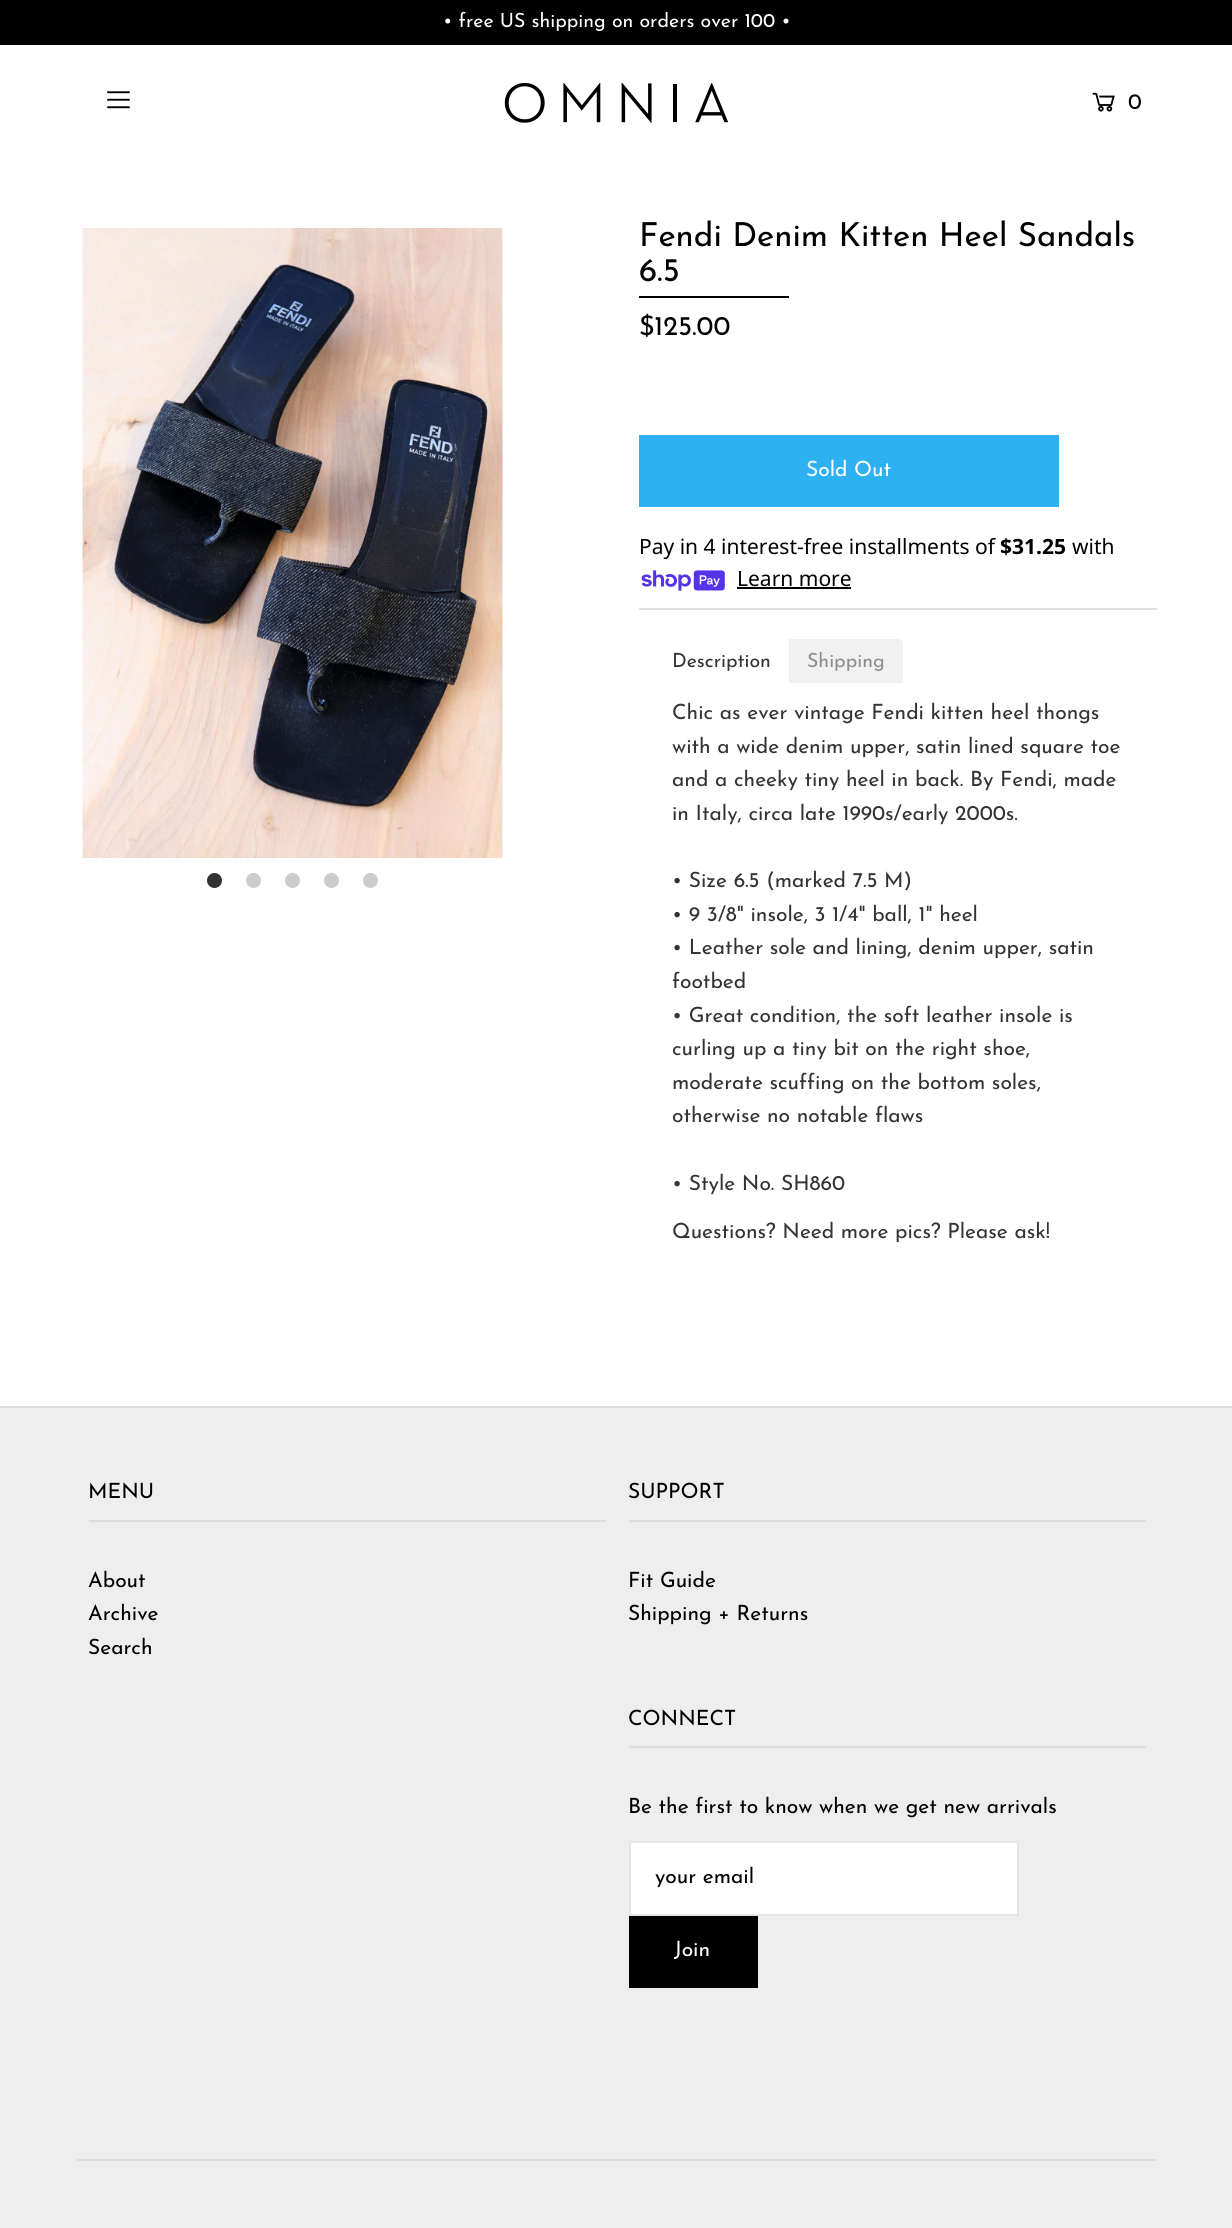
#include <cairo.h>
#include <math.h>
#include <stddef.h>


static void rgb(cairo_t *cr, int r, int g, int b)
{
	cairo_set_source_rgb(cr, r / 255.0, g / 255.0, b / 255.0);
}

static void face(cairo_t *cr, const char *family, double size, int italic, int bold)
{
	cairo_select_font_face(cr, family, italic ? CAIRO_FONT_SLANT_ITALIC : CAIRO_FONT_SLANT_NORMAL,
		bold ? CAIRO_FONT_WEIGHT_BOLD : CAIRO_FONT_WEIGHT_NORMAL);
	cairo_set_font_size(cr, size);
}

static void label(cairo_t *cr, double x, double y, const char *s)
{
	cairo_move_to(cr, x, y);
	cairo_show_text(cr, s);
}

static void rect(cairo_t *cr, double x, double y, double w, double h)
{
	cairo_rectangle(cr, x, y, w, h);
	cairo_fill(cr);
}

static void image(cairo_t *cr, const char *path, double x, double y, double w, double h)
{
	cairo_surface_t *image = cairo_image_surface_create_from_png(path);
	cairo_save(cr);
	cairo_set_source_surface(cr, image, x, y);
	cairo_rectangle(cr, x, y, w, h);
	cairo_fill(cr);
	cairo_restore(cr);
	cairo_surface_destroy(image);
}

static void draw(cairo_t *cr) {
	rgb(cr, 255, 255, 255);
	cairo_paint(cr);
	rgb(cr, 0, 0, 0);
	rect(cr, 0, 0, 1232, 45);
	face(cr, "Josefin Sans", 19.5, 0, 0);
	rgb(cr, 255, 255, 255);
	label(cr, 443, 27, "• free US shipping on orders over 100 •");
	image(cr, "image0.png", 107, 91, 23, 18);
	image(cr, "image1.png", 504, 83, 225, 40);
	image(cr, "image2.png", 1092, 92, 23, 20);
	face(cr, "Josefin Sans", 22, 0, 0);
	rgb(cr, 0, 0, 0);
	label(cr, 1128, 109, "0");
	image(cr, "image3.png", 82, 228, 421, 630);
	rgb(cr, 51, 51, 51);
	cairo_arc(cr, 214.5, 880.5, 7.5, 0, 2 * M_PI);
	cairo_fill(cr);
	rgb(cr, 204, 204, 204);
	cairo_arc(cr, 253.5, 880.5, 7.5, 0, 2 * M_PI);
	cairo_fill(cr);
	cairo_arc(cr, 292.5, 880.5, 7.5, 0, 2 * M_PI);
	cairo_fill(cr);
	cairo_arc(cr, 331.5, 880.5, 7.5, 0, 2 * M_PI);
	cairo_fill(cr);
	cairo_arc(cr, 370.5, 880.5, 7.5, 0, 2 * M_PI);
	cairo_fill(cr);
	face(cr, "Josefin Sans", 33, 0, 0);
	rgb(cr, 0, 0, 0);
	label(cr, 639, 246, "Fendi Denim Kitten Heel Sandals");
	label(cr, 639, 281, "6.5");
	rect(cr, 639, 296, 150, 2);
	rgb(cr, 223, 223, 223);
	rect(cr, 639, 608, 518, 2);
	face(cr, "Josefin Sans", 27, 0, 0);
	rgb(cr, 0, 0, 0);
	label(cr, 639, 335, "$125.00");
	rgb(cr, 45, 177, 242);
	rect(cr, 639, 435, 420, 72);
	face(cr, "Josefin Sans", 21, 0, 0);
	rgb(cr, 255, 255, 255);
	label(cr, 806, 476, "Sold Out");
	face(cr, "Noto Sans", 21, 0, 0);
	rgb(cr, 0, 0, 0);
	label(cr, 639, 554, "Pay in 4 interest-free installments of");
	face(cr, "Noto Sans", 21, 0, 1);
	label(cr, 1000, 554, "$31.25");
	face(cr, "Noto Sans", 21, 0, 0);
	label(cr, 1072, 554, "with");
	image(cr, "image4.png", 641, 570, 84, 21);
	label(cr, 737, 586, "Learn more");
	rect(cr, 737, 587, 114, 2);
	face(cr, "Josefin Sans", 19.5, 0, 0);
	rgb(cr, 51, 51, 51);
	label(cr, 672, 667, "Description");
	rgb(cr, 241, 241, 241);
	cairo_new_path(cr);
	cairo_move_to(cr, 789, 639);
	cairo_line_to(cr, 898, 639);
	cairo_curve_to(cr, 901, 639, 903, 641, 903, 644);
	cairo_line_to(cr, 903, 683);
	cairo_line_to(cr, 789, 683);
	cairo_close_path(cr);
	cairo_fill(cr);
	rgb(cr, 141, 141, 141);
	label(cr, 807, 667, "Shipping");
	face(cr, "Josefin Sans", 21, 0, 0);
	rgb(cr, 51, 51, 51);
	label(cr, 672, 719, "Chic as ever vintage Fendi kitten heel thongs");
	label(cr, 672, 753, "with a wide denim upper, satin lined square toe");
	label(cr, 672, 786, "and a cheeky tiny heel in back. By Fendi, made");
	label(cr, 672, 820, "in Italy, circa late 1990s/early 2000s.");
	label(cr, 672, 887, "• Size 6.5 (marked 7.5 M)");
	label(cr, 672, 921, "• 9 3/8\" insole, 3 1/4\" ball, 1\" heel");
	label(cr, 672, 954, "• Leather sole and lining, denim upper, satin");
	label(cr, 672, 988, "footbed");
	label(cr, 672, 1022, "• Great condition, the soft leather insole is");
	label(cr, 672, 1055, "curling up a tiny bit on the right shoe,");
	label(cr, 672, 1089, "moderate scuffing on the bottom soles,");
	label(cr, 672, 1122, "otherwise no notable flaws");
	label(cr, 672, 1190, "• Style No. SH860");
	label(cr, 672, 1238, "Questions? Need more pics? Please ask!");
	rgb(cr, 238, 238, 238);
	rect(cr, 0, 1408, 1232, 820);
	rgb(cr, 221, 221, 221);
	rect(cr, 0, 1406, 1232, 2);
	rect(cr, 89, 1520, 517, 2);
	rgb(cr, 0, 0, 0);
	label(cr, 88, 1498, "MENU");
	label(cr, 88, 1587, "About");
	label(cr, 88, 1620, "Archive");
	label(cr, 88, 1654, "Search");
	rgb(cr, 221, 221, 221);
	rect(cr, 629, 1520, 517, 2);
	rgb(cr, 0, 0, 0);
	label(cr, 628, 1498, "SUPPORT");
	label(cr, 628, 1587, "Fit Guide");
	label(cr, 628, 1620, "Shipping + Returns");
	rgb(cr, 221, 221, 221);
	rect(cr, 629, 1746, 517, 2);
	rgb(cr, 0, 0, 0);
	label(cr, 628, 1725, "CONNECT");
	label(cr, 628, 1813, "Be the first to know when we get new arrivals");
	rgb(cr, 255, 255, 255);
	cairo_rectangle(cr, 630, 1842, 388, 73);
	cairo_fill_preserve(cr);
	rgb(cr, 229, 229, 229);
	cairo_stroke(cr);
	rgb(cr, 0, 0, 0);
	label(cr, 655, 1883, "your email");
	rect(cr, 629, 1916, 129, 72);
	rgb(cr, 255, 255, 255);
	label(cr, 674, 1956, "Join");
	rgb(cr, 221, 221, 221);
	rect(cr, 77, 2159, 1080, 2);
}

int main(void) {
	cairo_surface_t *surface = cairo_image_surface_create(CAIRO_FORMAT_RGB24, 1232, 2228);
	cairo_t *cr = cairo_create(surface);
	cairo_font_options_t *options = cairo_font_options_create();
	cairo_font_options_set_hint_metrics(options, CAIRO_HINT_METRICS_OFF);
	cairo_font_options_set_hint_style(options, CAIRO_HINT_STYLE_NONE);
	cairo_set_font_options(cr, options);
	cairo_set_miter_limit(cr, 4);
	draw(cr);
	cairo_surface_write_to_png(surface, "render.png");
	cairo_font_options_destroy(options);
	cairo_destroy(cr);
	cairo_surface_destroy(surface);
	return 0;
}
